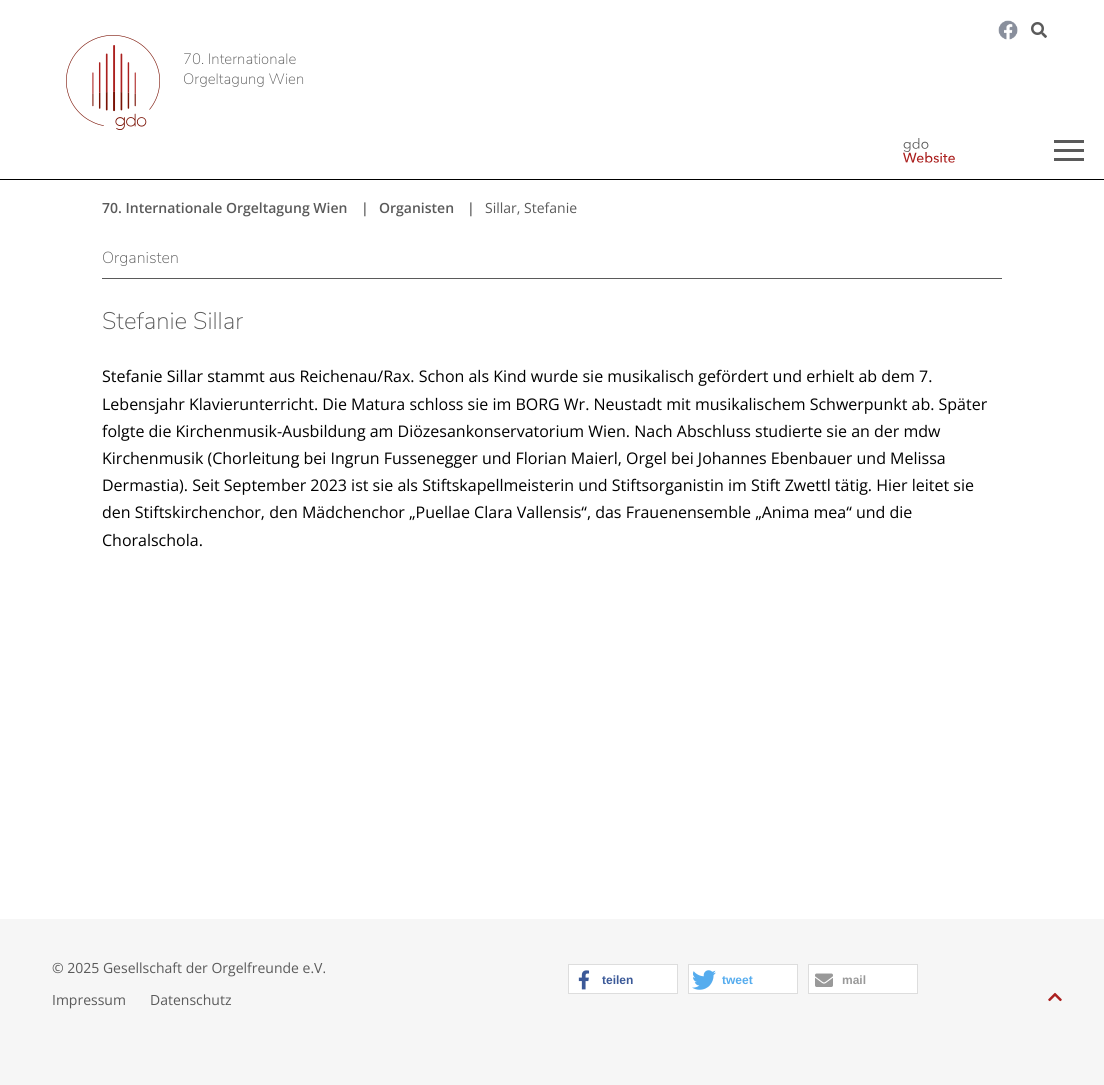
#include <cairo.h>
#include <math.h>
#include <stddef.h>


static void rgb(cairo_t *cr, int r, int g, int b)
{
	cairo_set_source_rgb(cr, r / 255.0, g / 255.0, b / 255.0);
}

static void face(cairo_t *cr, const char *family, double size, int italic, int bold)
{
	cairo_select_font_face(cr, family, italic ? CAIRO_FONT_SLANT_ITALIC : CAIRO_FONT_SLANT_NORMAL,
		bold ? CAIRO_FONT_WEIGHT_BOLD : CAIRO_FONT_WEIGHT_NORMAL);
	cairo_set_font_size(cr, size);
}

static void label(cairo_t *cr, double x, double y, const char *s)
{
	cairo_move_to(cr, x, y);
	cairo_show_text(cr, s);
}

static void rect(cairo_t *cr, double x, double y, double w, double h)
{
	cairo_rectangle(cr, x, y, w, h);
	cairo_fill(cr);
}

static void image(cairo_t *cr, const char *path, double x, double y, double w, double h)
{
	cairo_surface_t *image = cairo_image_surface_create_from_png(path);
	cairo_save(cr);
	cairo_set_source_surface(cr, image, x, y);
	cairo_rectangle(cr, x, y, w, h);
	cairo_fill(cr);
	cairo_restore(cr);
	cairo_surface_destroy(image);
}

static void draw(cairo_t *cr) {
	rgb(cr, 255, 255, 255);
	cairo_paint(cr);
	rgb(cr, 0, 0, 0);
	rect(cr, 0, 179, 1104, 1);
	image(cr, "image0.png", 998, 20, 20, 20);
	image(cr, "image1.png", 1031, 22, 16, 16);
	image(cr, "image2.png", 66, 35, 94, 95);
	face(cr, "Nunito Sans ExtraLight", 15, 0, 0);
	rgb(cr, 90, 90, 90);
	label(cr, 183, 64, "70. Internationale");
	label(cr, 183, 84, "Orgeltagung Wien");
	image(cr, "image3.png", 903, 138, 52, 25);
	rect(cr, 1054, 149, 30, 3);
	rect(cr, 1054, 140, 30, 3);
	rect(cr, 1054, 158, 30, 3);
	face(cr, "Open Sans SemiBold", 14, 0, 0);
	label(cr, 102, 213, "70. Internationale Orgeltagung Wien");
	label(cr, 361, 213, "|");
	label(cr, 379, 213, "Organisten");
	label(cr, 467, 213, "|");
	face(cr, "Open Sans", 14, 0, 0);
	label(cr, 485, 213, "Sillar, Stefanie");
	rect(cr, 102, 278, 900, 1);
	face(cr, "Nunito Sans ExtraLight", 16, 0, 0);
	label(cr, 102, 263, "Organisten");
	face(cr, "Nunito Sans ExtraLight", 24, 0, 0);
	label(cr, 102, 329, "Stefanie Sillar");
	face(cr, "Open Sans", 16, 0, 0);
	rgb(cr, 0, 0, 0);
	label(cr, 102, 382, "Stefanie Sillar stammt aus Reichenau/Rax. Schon als Kind wurde sie musikalisch gefördert und erhielt ab dem 7.");
	label(cr, 102, 410, "Lebensjahr Klavierunterricht. Die Matura schloss sie im BORG Wr. Neustadt mit musikalischem Schwerpunkt ab. Später");
	label(cr, 102, 437, "folgte die Kirchenmusik-Ausbildung am Diözesankonservatorium Wien. Nach Abschluss studierte sie an der mdw");
	label(cr, 102, 464, "Kirchenmusik (Chorleitung bei Ingrun Fussenegger und Florian Maierl, Orgel bei Johannes Ebenbauer und Melissa");
	label(cr, 102, 491, "Dermastia). Seit September 2023 ist sie als Stiftskapellmeisterin und Stiftsorganistin im Stift Zwettl tätig. Hier leitet sie");
	label(cr, 102, 518, "den Stiftskirchenchor, den Mädchenchor „Puellae Clara Vallensis“, das Frauenensemble „Anima mea“ und die");
	label(cr, 102, 546, "Choralschola.");
	rgb(cr, 246, 246, 246);
	rect(cr, 0, 919, 1104, 166);
	face(cr, "Open Sans", 14, 0, 0);
	rgb(cr, 90, 90, 90);
	label(cr, 52, 973, "© 2025 Gesellschaft der Orgelfreunde e.V.");
	label(cr, 52, 1005, "Impressum");
	label(cr, 150, 1005, "Datenschutz");
	cairo_rectangle(cr, 568.5, 964.5, 109, 29);
	rgb(cr, 221, 221, 221);
	cairo_set_line_width(cr, 1);
	cairo_stroke(cr);
	rgb(cr, 255, 255, 255);
	rect(cr, 569, 965, 108, 28);
	image(cr, "image4.png", 578, 970, 12, 20);
	face(cr, "Liberation Sans", 12, 0, 1);
	rgb(cr, 59, 89, 152);
	label(cr, 602, 984, "teilen");
	cairo_rectangle(cr, 688.5, 964.5, 109, 29);
	rgb(cr, 221, 221, 221);
	cairo_stroke(cr);
	rgb(cr, 255, 255, 255);
	rect(cr, 689, 965, 108, 28);
	image(cr, "image5.png", 692, 970, 24, 20);
	rgb(cr, 85, 172, 238);
	label(cr, 722, 984, "tweet");
	cairo_rectangle(cr, 808.5, 964.5, 109, 29);
	rgb(cr, 221, 221, 221);
	cairo_stroke(cr);
	rgb(cr, 255, 255, 255);
	rect(cr, 809, 965, 108, 28);
	image(cr, "image6.png", 815, 973, 18, 14);
	rgb(cr, 153, 153, 153);
	label(cr, 842, 984, "mail");
	image(cr, "image7.png", 1048, 992, 14, 10);
}

int main(void) {
	cairo_surface_t *surface = cairo_image_surface_create(CAIRO_FORMAT_RGB24, 1104, 1085);
	cairo_t *cr = cairo_create(surface);
	cairo_font_options_t *options = cairo_font_options_create();
	cairo_font_options_set_hint_metrics(options, CAIRO_HINT_METRICS_OFF);
	cairo_font_options_set_hint_style(options, CAIRO_HINT_STYLE_NONE);
	cairo_set_font_options(cr, options);
	cairo_set_miter_limit(cr, 4);
	draw(cr);
	cairo_surface_write_to_png(surface, "render.png");
	cairo_font_options_destroy(options);
	cairo_destroy(cr);
	cairo_surface_destroy(surface);
	return 0;
}
